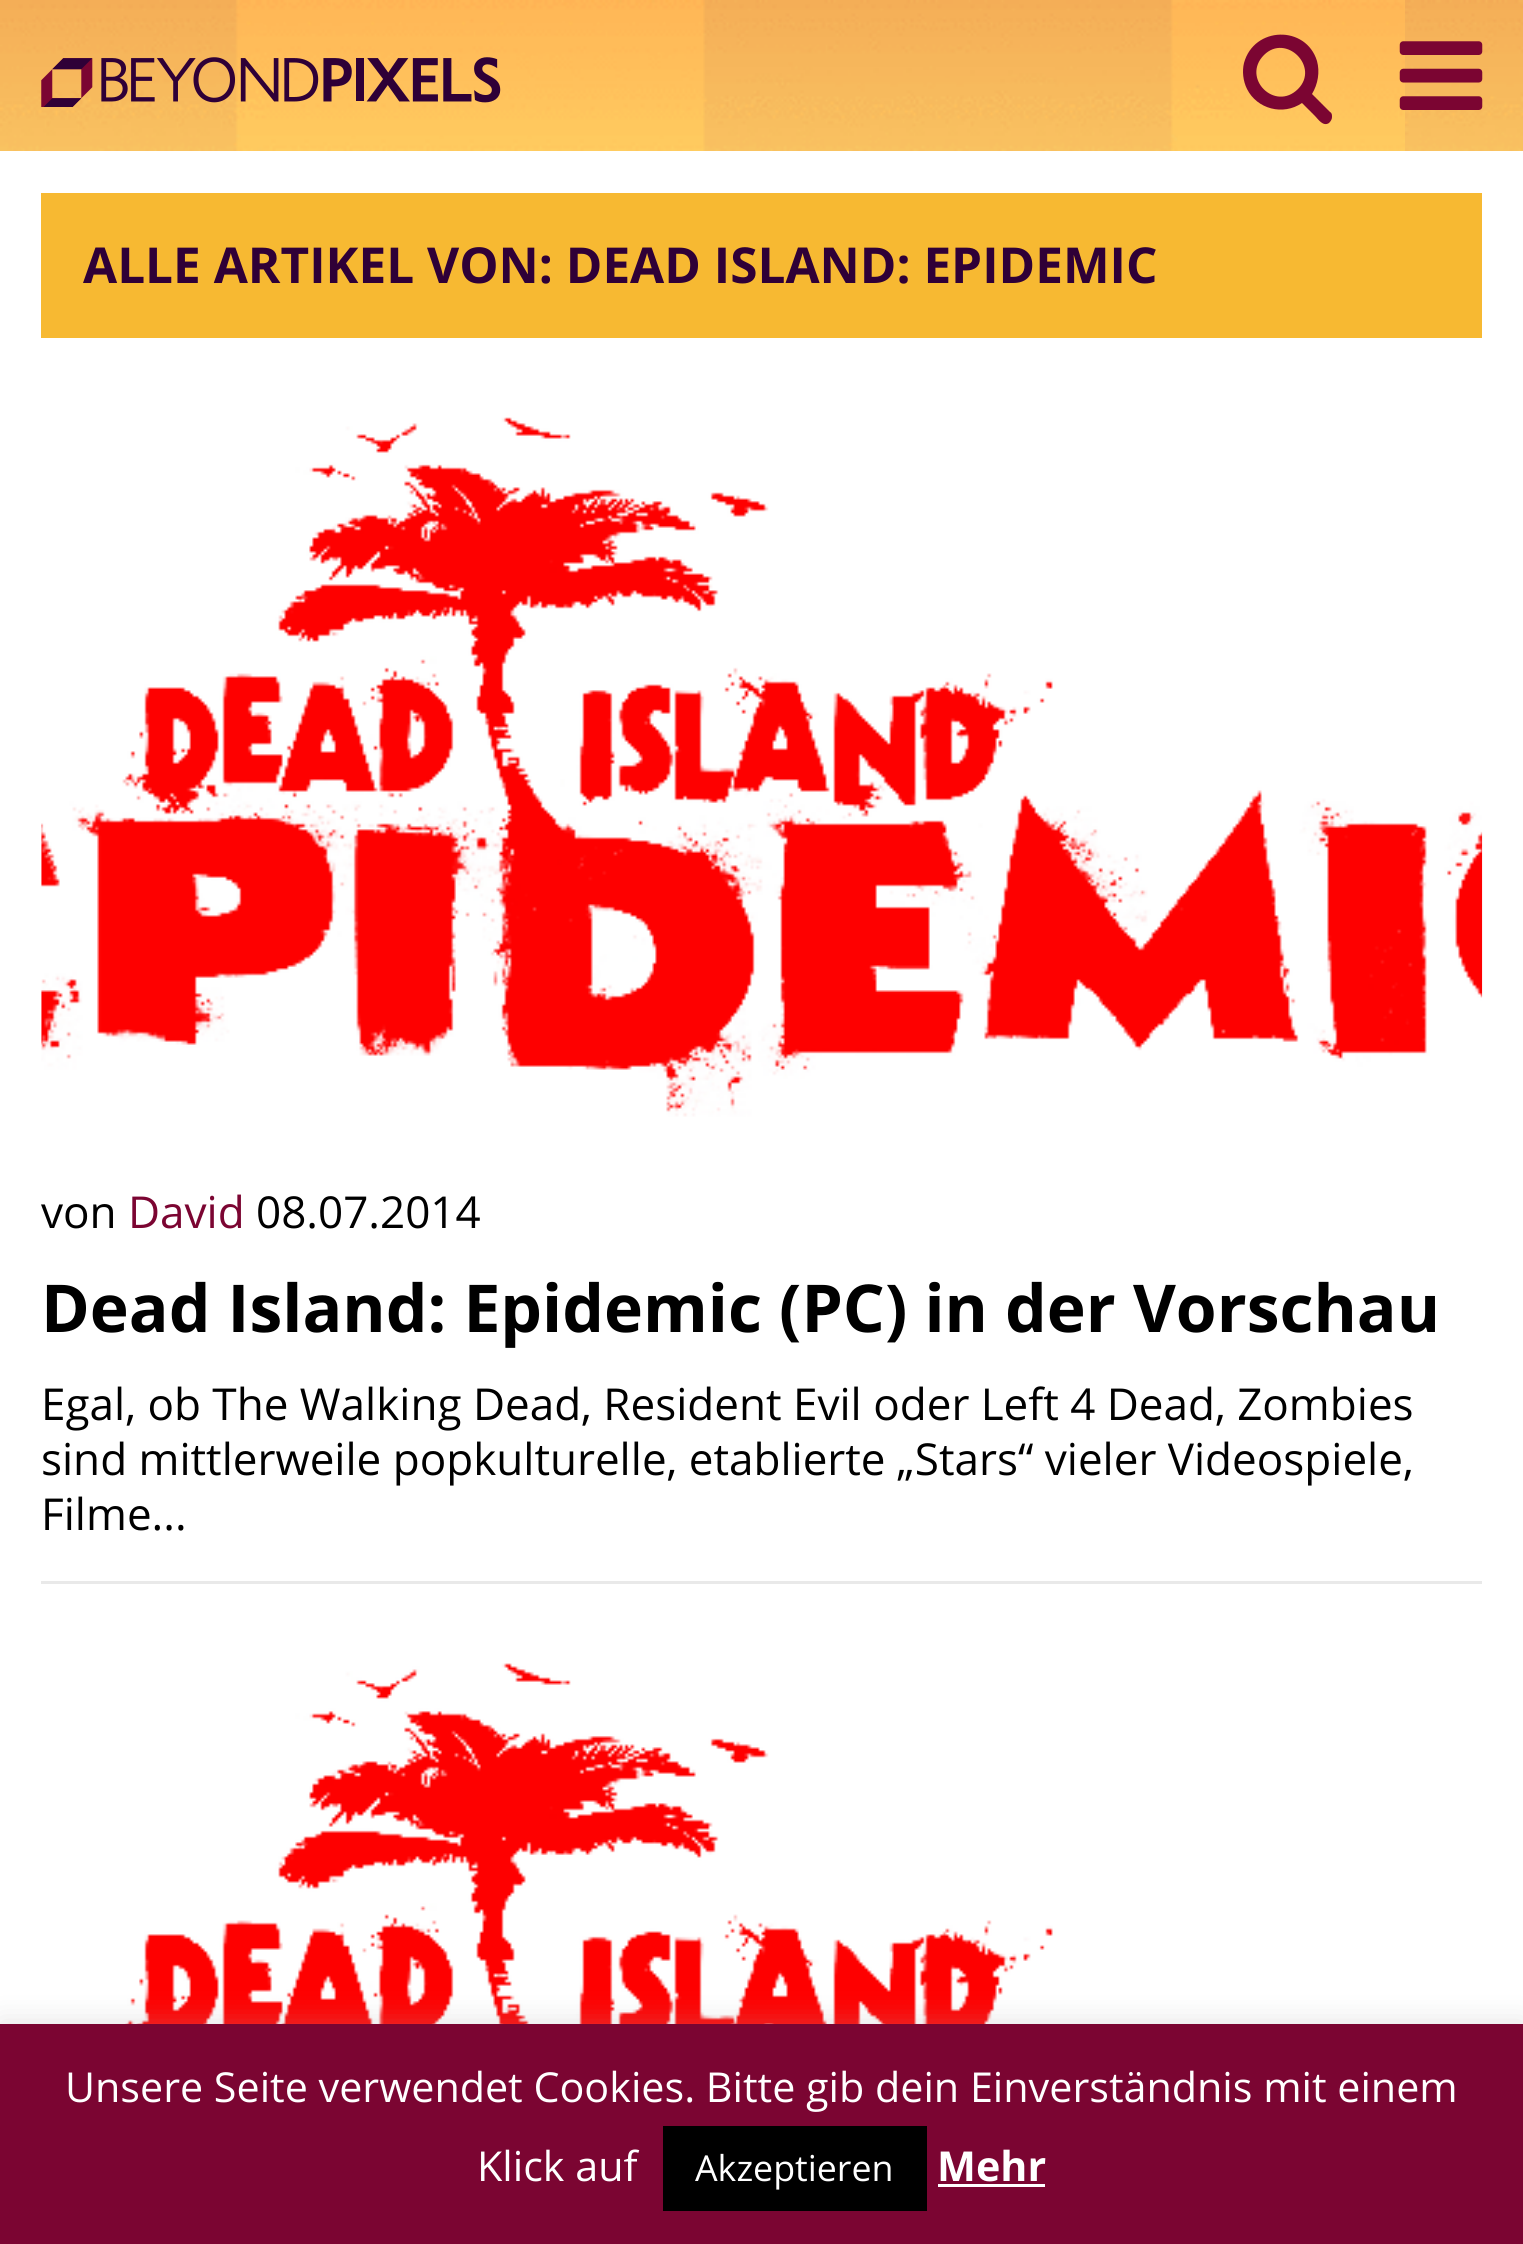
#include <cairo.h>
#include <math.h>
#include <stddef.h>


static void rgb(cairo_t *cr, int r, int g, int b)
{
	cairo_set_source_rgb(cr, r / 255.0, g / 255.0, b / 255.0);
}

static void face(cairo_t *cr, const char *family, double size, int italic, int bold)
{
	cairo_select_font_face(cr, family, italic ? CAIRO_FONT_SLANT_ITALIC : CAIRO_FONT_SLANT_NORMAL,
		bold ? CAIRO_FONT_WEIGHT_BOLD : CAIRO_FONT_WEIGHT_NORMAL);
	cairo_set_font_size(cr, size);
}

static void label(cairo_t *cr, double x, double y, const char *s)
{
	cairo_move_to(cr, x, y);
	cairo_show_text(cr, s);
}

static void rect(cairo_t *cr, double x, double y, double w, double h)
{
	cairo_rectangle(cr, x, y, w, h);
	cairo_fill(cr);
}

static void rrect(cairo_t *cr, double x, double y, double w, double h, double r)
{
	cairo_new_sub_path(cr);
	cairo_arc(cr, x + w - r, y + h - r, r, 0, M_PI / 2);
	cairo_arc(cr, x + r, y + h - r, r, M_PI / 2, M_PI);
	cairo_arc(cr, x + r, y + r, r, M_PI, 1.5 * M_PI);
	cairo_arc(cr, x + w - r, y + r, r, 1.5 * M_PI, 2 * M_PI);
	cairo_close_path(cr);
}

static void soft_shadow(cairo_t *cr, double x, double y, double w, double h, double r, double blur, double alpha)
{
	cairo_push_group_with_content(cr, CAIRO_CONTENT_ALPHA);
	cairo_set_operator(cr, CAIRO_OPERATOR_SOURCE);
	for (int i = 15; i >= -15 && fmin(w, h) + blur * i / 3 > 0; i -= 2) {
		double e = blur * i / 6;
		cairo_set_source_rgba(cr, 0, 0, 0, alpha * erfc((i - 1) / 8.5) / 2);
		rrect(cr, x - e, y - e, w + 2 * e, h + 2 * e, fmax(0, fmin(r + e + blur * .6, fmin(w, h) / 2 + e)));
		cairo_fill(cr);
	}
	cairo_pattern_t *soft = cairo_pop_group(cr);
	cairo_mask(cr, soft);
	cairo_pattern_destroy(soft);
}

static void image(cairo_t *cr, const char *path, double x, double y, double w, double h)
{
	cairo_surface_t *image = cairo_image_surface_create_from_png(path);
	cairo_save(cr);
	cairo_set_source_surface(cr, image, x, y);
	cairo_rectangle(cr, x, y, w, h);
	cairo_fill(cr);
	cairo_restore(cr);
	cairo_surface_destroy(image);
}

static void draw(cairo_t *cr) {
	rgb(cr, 255, 255, 255);
	cairo_paint(cr);
	image(cr, "image0.png", 0, 0, 1523, 151);
	image(cr, "image1.png", 41, 57, 460, 50);
	rgb(cr, 123, 5, 50);
	cairo_new_path(cr);
	cairo_move_to(cr, 1298, 89);
	cairo_curve_to(cr, 1320, 67, 1286, 33, 1264, 55);
	cairo_curve_to(cr, 1241, 78, 1275, 112, 1298, 89);
	cairo_close_path(cr);
	cairo_move_to(cr, 1332, 117);
	cairo_curve_to(cr, 1332, 119, 1331, 121, 1329, 123);
	cairo_curve_to(cr, 1323, 127, 1318, 119, 1315, 116);
	cairo_line_to(cr, 1302, 103);
	cairo_curve_to(cr, 1283, 116, 1257, 109, 1247, 89);
	cairo_curve_to(cr, 1243, 81, 1242, 71, 1244, 63);
	cairo_curve_to(cr, 1254, 26, 1306, 25, 1317, 61);
	cairo_curve_to(cr, 1320, 72, 1318, 84, 1312, 94);
	cairo_line_to(cr, 1330, 112);
	cairo_curve_to(cr, 1332, 113, 1332, 115, 1332, 117);
	cairo_close_path(cr);
	cairo_fill(cr);
	image(cr, "image2.png", 1399, 41, 84, 69);
	rgb(cr, 247, 185, 50);
	rect(cr, 41, 193, 1441, 145);
	face(cr, "Open Sans", 49.5, 0, 1);
	rgb(cr, 47, 0, 55);
	label(cr, 83, 283, "ALLE ARTIKEL VON: DEAD ISLAND: EPIDEMIC");
	image(cr, "image3.png", 41, 417, 1442, 700);
	face(cr, "Open Sans", 44, 0, 0);
	rgb(cr, 0, 0, 0);
	label(cr, 41, 1228, "von");
	rgb(cr, 123, 5, 50);
	label(cr, 128, 1228, "David");
	rgb(cr, 0, 0, 0);
	label(cr, 256, 1228, "08.07.2014");
	face(cr, "Open Sans", 66, 0, 1);
	label(cr, 41, 1332, "Dead Island: Epidemic (PC) in der Vorschau");
	face(cr, "Open Sans", 44, 0, 0);
	label(cr, 41, 1420, "Egal, ob The Walking Dead, Resident Evil oder Left 4 Dead, Zombies");
	label(cr, 41, 1475, "sind mittlerweile popkulturelle, etablierte „Stars“ vieler Videospiele,");
	label(cr, 41, 1530, "Filme...");
	rgb(cr, 233, 233, 233);
	rect(cr, 41, 1581, 1441, 3);
	image(cr, "image4.png", 41, 1663, 1442, 361);
	rgb(cr, 172, 171, 171);
	soft_shadow(cr, 0, 2021, 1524, 220, 0, 14, 0.3);
	rgb(cr, 123, 5, 50);
	rect(cr, 0, 2024, 1523, 220);
	face(cr, "Open Sans", 41.25, 0, 0);
	rgb(cr, 255, 255, 255);
	label(cr, 65, 2102, "Unsere Seite verwendet Cookies. Bitte gib dein Einverständnis mit einem");
	label(cr, 477, 2181, "Klick auf");
	rgb(cr, 0, 0, 0);
	rect(cr, 663, 2126, 264, 85);
	face(cr, "Open Sans", 35.75, 0, 0);
	rgb(cr, 255, 255, 255);
	label(cr, 695, 2181, "Akzeptieren");
	face(cr, "Open Sans", 41.25, 0, 1);
	label(cr, 937, 2181, "Mehr");
	rect(cr, 938, 2184, 107, 3);
}

int main(void) {
	cairo_surface_t *surface = cairo_image_surface_create(CAIRO_FORMAT_RGB24, 1523, 2244);
	cairo_t *cr = cairo_create(surface);
	cairo_font_options_t *options = cairo_font_options_create();
	cairo_font_options_set_hint_metrics(options, CAIRO_HINT_METRICS_OFF);
	cairo_font_options_set_hint_style(options, CAIRO_HINT_STYLE_NONE);
	cairo_set_font_options(cr, options);
	cairo_set_miter_limit(cr, 4);
	draw(cr);
	cairo_surface_write_to_png(surface, "render.png");
	cairo_font_options_destroy(options);
	cairo_destroy(cr);
	cairo_surface_destroy(surface);
	return 0;
}
